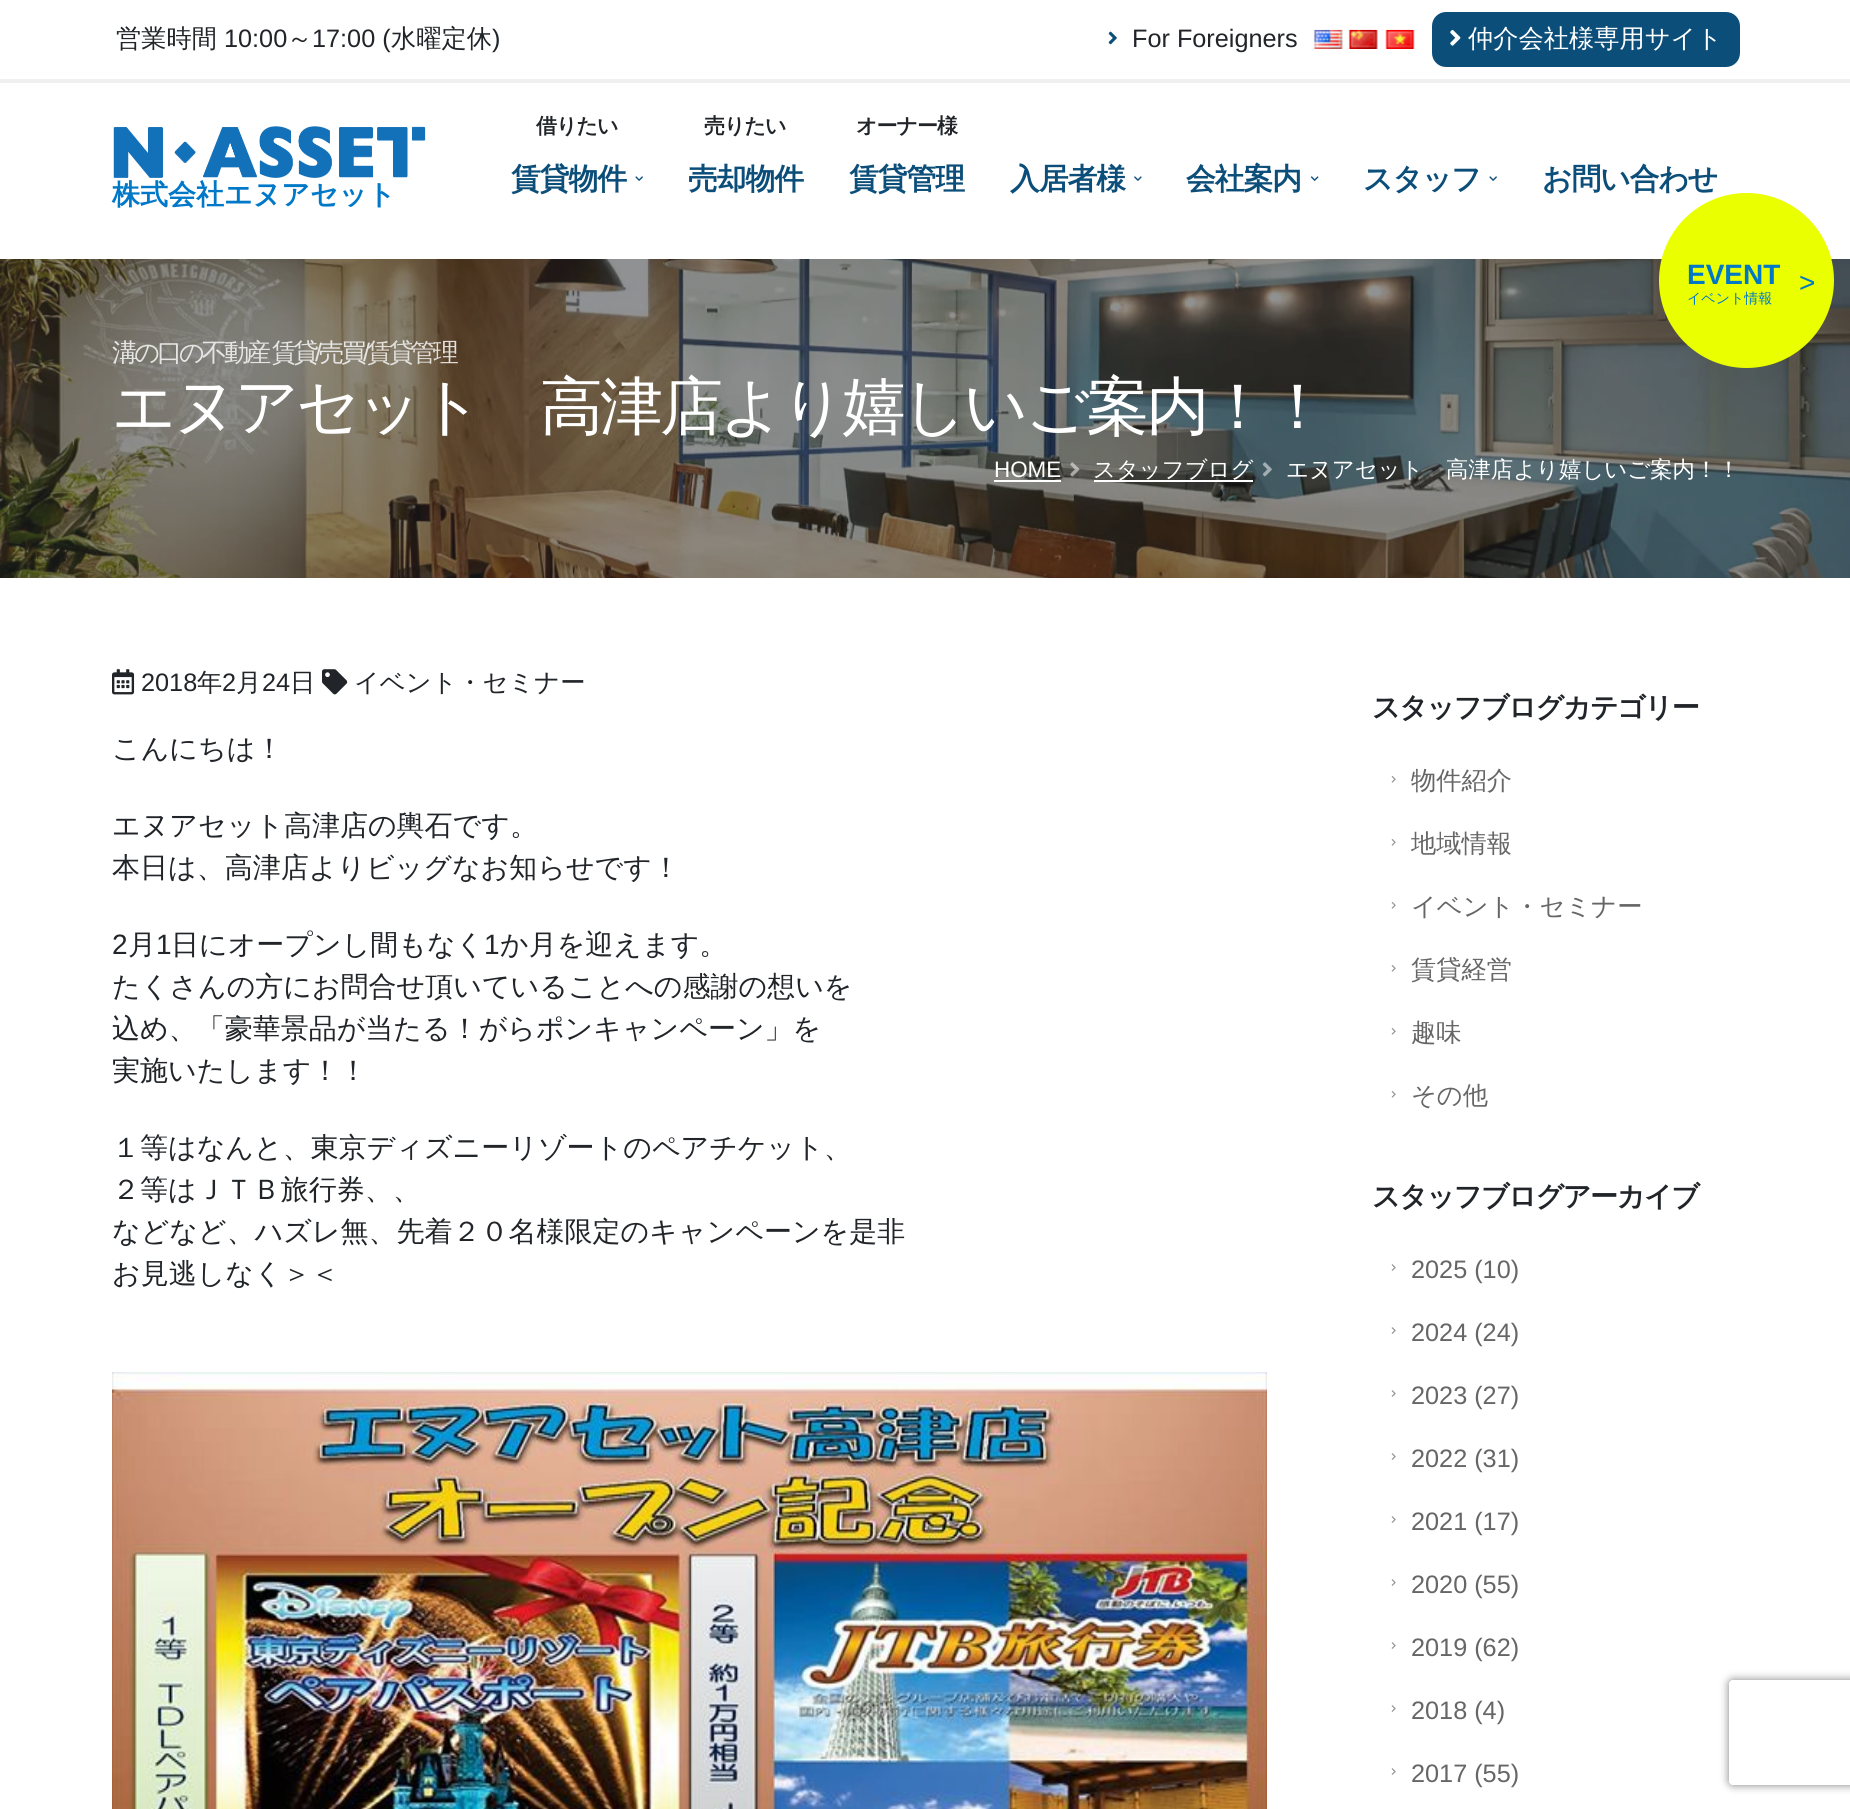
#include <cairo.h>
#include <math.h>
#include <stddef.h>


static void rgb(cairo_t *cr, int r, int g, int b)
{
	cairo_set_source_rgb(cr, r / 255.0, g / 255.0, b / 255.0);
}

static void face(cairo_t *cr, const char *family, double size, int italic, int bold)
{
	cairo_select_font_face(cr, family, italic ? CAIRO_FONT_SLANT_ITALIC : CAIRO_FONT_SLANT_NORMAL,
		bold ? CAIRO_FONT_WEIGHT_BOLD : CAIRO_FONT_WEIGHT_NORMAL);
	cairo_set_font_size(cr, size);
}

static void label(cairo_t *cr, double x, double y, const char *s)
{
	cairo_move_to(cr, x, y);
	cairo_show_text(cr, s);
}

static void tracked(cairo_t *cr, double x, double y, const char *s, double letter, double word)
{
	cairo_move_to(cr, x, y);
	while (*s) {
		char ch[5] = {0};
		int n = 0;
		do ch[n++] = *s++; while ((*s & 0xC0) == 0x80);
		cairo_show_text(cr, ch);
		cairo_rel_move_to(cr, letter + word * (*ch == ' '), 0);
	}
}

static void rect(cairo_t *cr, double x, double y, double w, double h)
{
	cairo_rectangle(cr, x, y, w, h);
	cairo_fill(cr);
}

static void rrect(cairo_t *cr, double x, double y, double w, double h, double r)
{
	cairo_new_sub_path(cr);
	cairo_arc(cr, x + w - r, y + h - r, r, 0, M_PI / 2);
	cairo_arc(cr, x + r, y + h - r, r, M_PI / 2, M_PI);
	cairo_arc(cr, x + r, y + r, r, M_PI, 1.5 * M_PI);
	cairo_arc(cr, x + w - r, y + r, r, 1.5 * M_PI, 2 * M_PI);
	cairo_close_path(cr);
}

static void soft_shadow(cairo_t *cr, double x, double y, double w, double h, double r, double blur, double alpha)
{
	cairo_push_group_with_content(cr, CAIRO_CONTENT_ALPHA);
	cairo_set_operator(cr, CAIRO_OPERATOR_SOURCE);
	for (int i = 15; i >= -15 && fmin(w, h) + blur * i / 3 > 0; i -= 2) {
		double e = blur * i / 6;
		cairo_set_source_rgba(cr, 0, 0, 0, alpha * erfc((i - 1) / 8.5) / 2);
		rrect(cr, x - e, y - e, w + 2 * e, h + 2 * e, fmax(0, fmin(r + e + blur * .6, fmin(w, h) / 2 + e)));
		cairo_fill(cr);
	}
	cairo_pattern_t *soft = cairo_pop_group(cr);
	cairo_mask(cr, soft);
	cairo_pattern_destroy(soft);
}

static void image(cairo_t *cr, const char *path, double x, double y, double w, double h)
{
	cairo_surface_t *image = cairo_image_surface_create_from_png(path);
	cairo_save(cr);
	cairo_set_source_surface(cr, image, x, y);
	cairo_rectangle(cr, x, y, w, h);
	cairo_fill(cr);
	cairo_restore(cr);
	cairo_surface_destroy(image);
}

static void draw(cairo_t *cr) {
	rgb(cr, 255, 255, 255);
	cairo_paint(cr);
	rgb(cr, 240, 240, 240);
	rect(cr, 0, 79, 1850, 4);
	face(cr, "WenQuanYi Zen Hei Medium", 25.25, 0, 0);
	rgb(cr, 33, 37, 41);
	label(cr, 116, 47, "営業時間");
	face(cr, "Liberation Sans", 25.25, 0, 0);
	label(cr, 224, 47, "10:00");
	face(cr, "WenQuanYi Zen Hei Medium", 25.25, 0, 0);
	label(cr, 287, 47, "～");
	face(cr, "Liberation Sans", 25.25, 0, 0);
	label(cr, 312, 47, "17:00 (");
	face(cr, "WenQuanYi Zen Hei Medium", 25.25, 0, 0);
	label(cr, 391, 47, "水曜定休");
	face(cr, "Liberation Sans", 25.25, 0, 0);
	label(cr, 492, 47, ")");
	image(cr, "image0.png", 1108, 31, 9, 14);
	label(cr, 1132, 47, "For Foreigners");
	image(cr, "image1.png", 1313, 29, 30, 20);
	image(cr, "image2.png", 1348, 29, 30, 20);
	image(cr, "image3.png", 1385, 29, 30, 20);
	rgb(cr, 12, 78, 122);
	rrect(cr, 1432, 12, 308, 55, 14);
	cairo_fill(cr);
	image(cr, "image4.png", 1450, 29, 11, 17);
	face(cr, "WenQuanYi Zen Hei Medium", 25.25, 0, 0);
	rgb(cr, 255, 255, 255);
	label(cr, 1468, 47, "仲介会社様専用サイト");
	image(cr, "image5.png", 113, 126, 313, 52);
	face(cr, "WenQuanYi Zen Hei", 28, 0, 1);
	rgb(cr, 0, 120, 200);
	label(cr, 112, 204, "株式会社エヌアセット");
	face(cr, "WenQuanYi Zen Hei", 21, 0, 1);
	rgb(cr, 33, 37, 41);
	tracked(cr, 536, 133, "借りたい", -1, 0);
	face(cr, "WenQuanYi Zen Hei", 29.75, 0, 1);
	rgb(cr, 12, 78, 122);
	tracked(cr, 511, 189, "賃貸物件", -1, 0);
	image(cr, "image6.png", 635, 176, 8, 5);
	face(cr, "WenQuanYi Zen Hei", 21, 0, 1);
	rgb(cr, 33, 37, 41);
	tracked(cr, 704, 133, "売りたい", -1, 0);
	face(cr, "WenQuanYi Zen Hei", 29.75, 0, 1);
	rgb(cr, 12, 78, 122);
	tracked(cr, 688, 189, "売却物件", -1, 0);
	face(cr, "WenQuanYi Zen Hei", 21, 0, 1);
	rgb(cr, 33, 37, 41);
	tracked(cr, 856, 133, "オーナー様", -1, 0);
	face(cr, "WenQuanYi Zen Hei", 29.75, 0, 1);
	rgb(cr, 12, 78, 122);
	tracked(cr, 849, 189, "賃貸管理", -1, 0);
	tracked(cr, 1010, 189, "入居者様", -1, 0);
	image(cr, "image7.png", 1134, 176, 8, 5);
	tracked(cr, 1186, 189, "会社案内", -1, 0);
	image(cr, "image8.png", 1310, 176, 9, 5);
	tracked(cr, 1363, 189, "スタッフ", -1, 0);
	image(cr, "image6.png", 1489, 176, 8, 5);
	tracked(cr, 1542, 189, "お問い合わせ", -1, 0);
	image(cr, "image9.png", 0, 259, 1850, 319);
	rgb(cr, 234, 255, 0);
	cairo_arc(cr, 1746.5, 280.5, 87.5, 0, 2 * M_PI);
	cairo_fill(cr);
	face(cr, "Liberation Sans", 28, 0, 1);
	rgb(cr, 0, 120, 200);
	label(cr, 1687, 284, "EVENT");
	face(cr, "WenQuanYi Zen Hei Medium", 14, 0, 0);
	label(cr, 1687, 303, "イベント情報");
	face(cr, "Liberation Sans", 28, 0, 0);
	label(cr, 1799, 292, ">");
	face(cr, "WenQuanYi Zen Hei Medium", 25.25, 0, 0);
	rgb(cr, 229, 229, 228);
	tracked(cr, 112, 361, "溝の口の不動産 賃貸", -3.1, -1);
	face(cr, "Liberation Sans", 25.25, 0, 0);
	tracked(cr, 315, 361, "/", -3.1, 0);
	face(cr, "WenQuanYi Zen Hei Medium", 25.25, 0, 0);
	tracked(cr, 319, 361, "売買", -3.1, 0);
	face(cr, "Liberation Sans", 25.25, 0, 0);
	tracked(cr, 363, 361, "/", -3.1, 0);
	face(cr, "WenQuanYi Zen Hei Medium", 25.25, 0, 0);
	rgb(cr, 227, 224, 220);
	tracked(cr, 367, 361, "賃貸管理", -3.1, 0);
	face(cr, "WenQuanYi Zen Hei Medium", 63, 0, 0);
	rgb(cr, 255, 255, 255);
	tracked(cr, 112, 428, "エヌアセット　高津店より嬉しいご案内！！", -3.1, 0);
	face(cr, "Liberation Sans", 22.4, 0, 0);
	label(cr, 994, 477, "HOME");
	rect(cr, 994, 480, 67, 2);
	image(cr, "image10.png", 1070, 462, 10, 15);
	rect(cr, 1094, 480, 159, 2);
	face(cr, "WenQuanYi Zen Hei Medium", 22.4, 0, 0);
	label(cr, 1093, 477, "スタッフブログ");
	image(cr, "image11.png", 1262, 462, 10, 15);
	label(cr, 1286, 477, "エヌアセット　高津店より嬉しいご案内！！");
	image(cr, "image12.png", 112, 669, 23, 26);
	face(cr, "Liberation Sans", 25.25, 0, 0);
	rgb(cr, 33, 37, 41);
	label(cr, 141, 691, "2018");
	face(cr, "WenQuanYi Zen Hei Medium", 25.25, 0, 0);
	label(cr, 197, 691, "年");
	face(cr, "Liberation Sans", 25.25, 0, 0);
	label(cr, 222, 691, "2");
	face(cr, "WenQuanYi Zen Hei Medium", 25.25, 0, 0);
	label(cr, 236, 691, "月");
	face(cr, "Liberation Sans", 25.25, 0, 0);
	label(cr, 262, 691, "24");
	face(cr, "WenQuanYi Zen Hei Medium", 25.25, 0, 0);
	label(cr, 290, 691, "日");
	image(cr, "image13.png", 322, 669, 26, 26);
	label(cr, 354, 691, "イベント・セミナー");
	face(cr, "WenQuanYi Zen Hei Medium", 28, 0, 0);
	label(cr, 112, 758, "こんにちは！");
	label(cr, 112, 835, "エヌアセット高津店の輿石です。");
	label(cr, 112, 877, "本日は、高津店よりビッグなお知らせです！");
	face(cr, "Liberation Sans", 28, 0, 0);
	label(cr, 112, 954, "2");
	face(cr, "WenQuanYi Zen Hei Medium", 28, 0, 0);
	label(cr, 128, 954, "月");
	face(cr, "Liberation Sans", 28, 0, 0);
	label(cr, 156, 954, "1");
	face(cr, "WenQuanYi Zen Hei Medium", 28, 0, 0);
	label(cr, 171, 954, "日にオープンし間もなく");
	face(cr, "Liberation Sans", 28, 0, 0);
	label(cr, 484, 954, "1");
	face(cr, "WenQuanYi Zen Hei Medium", 28, 0, 0);
	label(cr, 500, 954, "か月を迎えます。");
	label(cr, 112, 996, "たくさんの方にお問合せ頂いていることへの感謝の想いを");
	label(cr, 112, 1038, "込め、「豪華景品が当たる！がらポンキャンペーン」を");
	label(cr, 112, 1080, "実施いたします！！");
	label(cr, 112, 1157, "１等はなんと、東京ディズニーリゾートのペアチケット、");
	label(cr, 112, 1199, "２等はＪＴＢ旅行券、、");
	label(cr, 112, 1241, "などなど、ハズレ無、先着２０名様限定のキャンペーンを是非");
	label(cr, 112, 1283, "お見逃しなく＞＜");
	image(cr, "image14.png", 112, 1372, 1155, 437);
	face(cr, "WenQuanYi Zen Hei", 28, 0, 1);
	tracked(cr, 1372, 717, "スタッフブログカテゴリー", -1.4, 0);
	image(cr, "image15.png", 1391, 776, 5, 7);
	face(cr, "WenQuanYi Zen Hei Medium", 25.25, 0, 0);
	rgb(cr, 102, 102, 102);
	label(cr, 1411, 789, "物件紹介");
	image(cr, "image15.png", 1391, 839, 5, 7);
	label(cr, 1411, 852, "地域情報");
	image(cr, "image15.png", 1391, 902, 5, 7);
	label(cr, 1411, 915, "イベント・セミナー");
	image(cr, "image15.png", 1391, 965, 5, 7);
	label(cr, 1411, 978, "賃貸経営");
	image(cr, "image15.png", 1391, 1028, 5, 7);
	label(cr, 1411, 1041, "趣味");
	image(cr, "image15.png", 1391, 1091, 5, 7);
	label(cr, 1411, 1104, "その他");
	face(cr, "WenQuanYi Zen Hei", 28, 0, 1);
	rgb(cr, 33, 37, 41);
	tracked(cr, 1372, 1206, "スタッフブログアーカイブ", -1.4, 0);
	image(cr, "image16.png", 1391, 1264, 5, 7);
	face(cr, "Liberation Sans", 25.25, 0, 0);
	rgb(cr, 102, 102, 102);
	label(cr, 1411, 1278, "2025 (10)");
	image(cr, "image16.png", 1391, 1327, 5, 7);
	label(cr, 1411, 1341, "2024 (24)");
	image(cr, "image16.png", 1391, 1390, 5, 7);
	label(cr, 1411, 1404, "2023 (27)");
	image(cr, "image16.png", 1391, 1453, 5, 7);
	label(cr, 1411, 1467, "2022 (31)");
	image(cr, "image16.png", 1391, 1516, 5, 7);
	label(cr, 1411, 1530, "2021 (17)");
	image(cr, "image16.png", 1391, 1579, 5, 7);
	label(cr, 1411, 1593, "2020 (55)");
	image(cr, "image16.png", 1391, 1642, 5, 7);
	label(cr, 1411, 1656, "2019 (62)");
	image(cr, "image16.png", 1391, 1705, 5, 7);
	label(cr, 1411, 1719, "2018 (4)");
	image(cr, "image16.png", 1391, 1768, 5, 7);
	label(cr, 1411, 1782, "2017 (55)");
	cairo_save(cr);
	cairo_set_fill_rule(cr, CAIRO_FILL_RULE_EVEN_ODD);
	cairo_new_path(cr);
	cairo_move_to(cr, 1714, 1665);
	cairo_line_to(cr, 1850, 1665);
	cairo_line_to(cr, 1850, 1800);
	cairo_line_to(cr, 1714, 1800);
	cairo_close_path(cr);
	cairo_move_to(cr, 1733, 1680);
	cairo_line_to(cr, 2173, 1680);
	cairo_curve_to(cr, 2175, 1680, 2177, 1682, 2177, 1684);
	cairo_line_to(cr, 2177, 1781);
	cairo_curve_to(cr, 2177, 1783, 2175, 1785, 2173, 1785);
	cairo_line_to(cr, 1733, 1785);
	cairo_curve_to(cr, 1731, 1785, 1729, 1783, 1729, 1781);
	cairo_line_to(cr, 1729, 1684);
	cairo_curve_to(cr, 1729, 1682, 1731, 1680, 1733, 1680);
	cairo_close_path(cr);
	cairo_clip(cr);
	rgb(cr, 128, 128, 128);
	soft_shadow(cr, 1729, 1680, 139, 105, 4, 4.5, 1);
	cairo_restore(cr);
}

int main(void) {
	cairo_surface_t *surface = cairo_image_surface_create(CAIRO_FORMAT_RGB24, 1850, 1809);
	cairo_t *cr = cairo_create(surface);
	cairo_font_options_t *options = cairo_font_options_create();
	cairo_font_options_set_hint_metrics(options, CAIRO_HINT_METRICS_OFF);
	cairo_font_options_set_hint_style(options, CAIRO_HINT_STYLE_NONE);
	cairo_set_font_options(cr, options);
	cairo_set_miter_limit(cr, 4);
	draw(cr);
	cairo_surface_write_to_png(surface, "render.png");
	cairo_font_options_destroy(options);
	cairo_destroy(cr);
	cairo_surface_destroy(surface);
	return 0;
}
